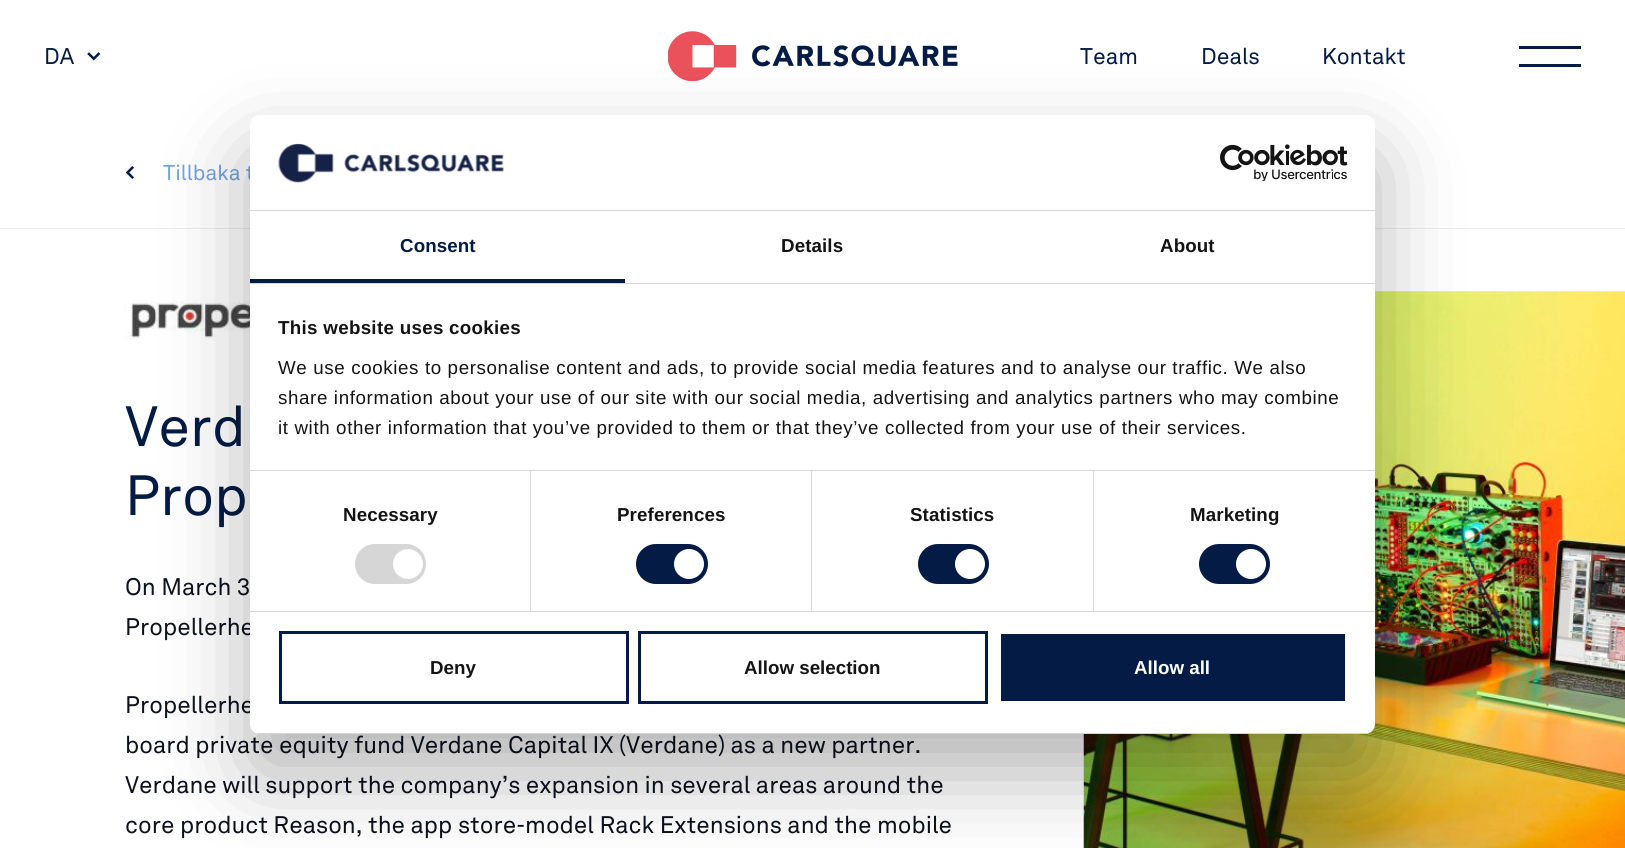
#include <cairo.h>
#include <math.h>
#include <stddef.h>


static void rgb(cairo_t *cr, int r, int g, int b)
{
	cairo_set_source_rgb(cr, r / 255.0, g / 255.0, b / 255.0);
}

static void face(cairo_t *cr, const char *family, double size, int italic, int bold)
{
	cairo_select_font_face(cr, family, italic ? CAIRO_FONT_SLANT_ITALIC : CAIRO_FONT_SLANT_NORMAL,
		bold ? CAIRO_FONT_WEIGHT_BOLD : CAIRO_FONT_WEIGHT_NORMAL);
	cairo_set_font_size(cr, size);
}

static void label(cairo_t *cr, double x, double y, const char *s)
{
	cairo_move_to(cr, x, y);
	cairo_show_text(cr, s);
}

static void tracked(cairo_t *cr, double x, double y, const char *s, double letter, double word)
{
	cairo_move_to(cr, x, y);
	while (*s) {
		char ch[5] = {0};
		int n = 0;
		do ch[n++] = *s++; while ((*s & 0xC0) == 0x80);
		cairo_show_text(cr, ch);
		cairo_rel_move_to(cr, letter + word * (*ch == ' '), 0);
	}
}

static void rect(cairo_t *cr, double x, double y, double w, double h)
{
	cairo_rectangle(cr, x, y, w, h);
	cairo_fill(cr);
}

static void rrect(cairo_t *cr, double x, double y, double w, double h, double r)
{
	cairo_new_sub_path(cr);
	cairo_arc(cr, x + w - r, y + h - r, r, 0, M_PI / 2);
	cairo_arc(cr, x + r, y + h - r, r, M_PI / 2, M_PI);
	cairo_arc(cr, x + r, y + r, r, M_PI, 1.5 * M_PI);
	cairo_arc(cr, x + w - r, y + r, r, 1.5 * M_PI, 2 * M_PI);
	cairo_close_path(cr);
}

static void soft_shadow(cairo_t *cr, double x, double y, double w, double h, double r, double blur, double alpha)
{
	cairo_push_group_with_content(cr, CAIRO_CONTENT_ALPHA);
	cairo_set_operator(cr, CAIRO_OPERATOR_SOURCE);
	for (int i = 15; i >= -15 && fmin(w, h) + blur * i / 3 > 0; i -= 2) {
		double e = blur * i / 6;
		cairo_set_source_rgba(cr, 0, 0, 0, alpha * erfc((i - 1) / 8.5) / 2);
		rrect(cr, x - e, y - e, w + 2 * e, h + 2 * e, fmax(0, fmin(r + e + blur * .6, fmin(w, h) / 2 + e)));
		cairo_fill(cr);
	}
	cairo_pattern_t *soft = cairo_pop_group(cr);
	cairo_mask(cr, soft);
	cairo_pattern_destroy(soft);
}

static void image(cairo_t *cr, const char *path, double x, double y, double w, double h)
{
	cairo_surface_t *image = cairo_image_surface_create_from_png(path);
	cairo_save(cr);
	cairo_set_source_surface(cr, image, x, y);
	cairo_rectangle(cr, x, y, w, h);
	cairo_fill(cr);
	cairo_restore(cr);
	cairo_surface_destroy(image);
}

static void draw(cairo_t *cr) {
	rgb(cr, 255, 255, 255);
	cairo_paint(cr);
	face(cr, "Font", 22.5, 0, 0);
	rgb(cr, 3, 27, 69);
	label(cr, 44, 64, "DA");
	image(cr, "image0.png", 87, 52, 14, 9);
	image(cr, "image1.png", 668, 31, 290, 50);
	label(cr, 1080, 64, "Team");
	label(cr, 1201, 64, "Deals");
	label(cr, 1322, 64, "Kontakt");
	rect(cr, 1519, 46, 62, 3);
	rect(cr, 1519, 64, 62, 3);
	rgb(cr, 235, 235, 235);
	rect(cr, 0, 228, 1625, 1);
	image(cr, "image2.png", 126, 166, 8, 13);
	face(cr, "Font", 21.25, 0, 0);
	rgb(cr, 115, 162, 226);
	label(cr, 163, 180, "Tillbaka t");
	image(cr, "image3.png", 125, 291, 125, 49);
	face(cr, "Font", 56, 0, 0);
	rgb(cr, 3, 27, 69);
	label(cr, 125, 446, "Verd");
	label(cr, 125, 515, "Prop");
	face(cr, "Font", 23.75, 0, 0);
	rgb(cr, 11, 17, 29);
	label(cr, 125, 595, "On March 3");
	label(cr, 125, 635, "Propellerhe");
	label(cr, 125, 713, "Propellerhe");
	label(cr, 125, 753, "board private equity fund Verdane Capital IX (Verdane) as a new partner.");
	label(cr, 125, 793, "Verdane will support the company’s expansion in several areas around the");
	label(cr, 125, 833, "core product Reason, the app store-model Rack Extensions and the mobile");
	image(cr, "image4.png", 1083, 291, 542, 557);
	rgb(cr, 0, 0, 0);
	soft_shadow(cr, 250, 155, 1125, 619, 10, 42.5, 0.3);
	rgb(cr, 255, 255, 255);
	rrect(cr, 250, 115, 1125, 619, 10);
	cairo_fill(cr);
	rgb(cr, 214, 214, 214);
	rect(cr, 250, 210, 1125, 1);
	image(cr, "image5.png", 278, 143, 226, 40);
	image(cr, "image6.png", 1220, 144, 128, 37);
	rect(cr, 250, 283, 1125, 1);
	rgb(cr, 3, 27, 69);
	rect(cr, 250, 279, 375, 4);
	face(cr, "Liberation Sans", 18.75, 0, 1);
	tracked(cr, 400, 252, "Consent", 0.1, 0);
	rgb(cr, 20, 20, 20);
	tracked(cr, 781, 252, "Details", 0.1, 0);
	tracked(cr, 1160, 252, "About", 0.1, 0);
	rgb(cr, 214, 214, 214);
	rect(cr, 250, 470, 1125, 1);
	rgb(cr, 20, 20, 20);
	tracked(cr, 278, 334, "This website uses cookies", 0.3, 0);
	face(cr, "Liberation Sans", 18.75, 0, 0);
	tracked(cr, 278, 374, "We use cookies to personalise content and ads, to provide social media features and to analyse our traffic. We also", 0.62, 0);
	tracked(cr, 278, 404, "share information about your use of our site with our social media, advertising and analytics partners who may combine", 0.62, 0);
	tracked(cr, 278, 434, "it with other information that you’ve provided to them or that they’ve collected from your use of their services.", 0.62, 0);
	rgb(cr, 214, 214, 214);
	rect(cr, 250, 611, 1125, 1);
	rect(cr, 530, 471, 1, 140);
	face(cr, "Liberation Sans", 18.75, 0, 1);
	rgb(cr, 20, 20, 20);
	tracked(cr, 343, 521, "Necessary", 0.1, 0);
	rgb(cr, 214, 214, 214);
	rrect(cr, 355, 544, 71, 40, 20);
	cairo_fill(cr);
	rgb(cr, 255, 255, 255);
	cairo_arc(cr, 408, 564, 15, 0, 2 * M_PI);
	cairo_fill(cr);
	rgb(cr, 214, 214, 214);
	rect(cr, 811, 471, 1, 140);
	rgb(cr, 20, 20, 20);
	tracked(cr, 617, 521, "Preferences", 0.1, 0);
	rgb(cr, 3, 27, 69);
	rrect(cr, 636, 544, 72, 40, 20);
	cairo_fill(cr);
	rgb(cr, 255, 255, 255);
	cairo_arc(cr, 689, 564, 15, 0, 2 * M_PI);
	cairo_fill(cr);
	rgb(cr, 214, 214, 214);
	rect(cr, 1093, 471, 1, 140);
	rgb(cr, 20, 20, 20);
	tracked(cr, 910, 521, "Statistics", 0.1, 0);
	rgb(cr, 3, 27, 69);
	rrect(cr, 918, 544, 71, 40, 20);
	cairo_fill(cr);
	rgb(cr, 255, 255, 255);
	cairo_arc(cr, 970, 564, 15, 0, 2 * M_PI);
	cairo_fill(cr);
	rgb(cr, 20, 20, 20);
	tracked(cr, 1190, 521, "Marketing", 0.1, 0);
	rgb(cr, 3, 27, 69);
	rrect(cr, 1199, 544, 71, 40, 20);
	cairo_fill(cr);
	rgb(cr, 255, 255, 255);
	cairo_arc(cr, 1251, 564, 15, 0, 2 * M_PI);
	cairo_fill(cr);
	cairo_save(cr);
	rrect(cr, 250, 115, 1125, 619, 10);
	cairo_clip(cr);
	rgb(cr, 214, 214, 214);
	rect(cr, 250, 733, 1125, 1);
	cairo_restore(cr);
	cairo_rectangle(cr, 280.5, 632.5, 347, 70);
	rgb(cr, 3, 27, 69);
	cairo_set_line_width(cr, 3);
	cairo_stroke(cr);
	rgb(cr, 20, 20, 20);
	label(cr, 430, 674, "Deny");
	cairo_rectangle(cr, 639.5, 632.5, 347, 70);
	rgb(cr, 3, 27, 69);
	cairo_stroke(cr);
	rgb(cr, 20, 20, 20);
	label(cr, 744, 674, "Allow selection");
	rgb(cr, 3, 27, 69);
	rect(cr, 1001, 634, 344, 67);
	rgb(cr, 255, 255, 255);
	label(cr, 1134, 674, "Allow all");
}

int main(void) {
	cairo_surface_t *surface = cairo_image_surface_create(CAIRO_FORMAT_RGB24, 1625, 848);
	cairo_t *cr = cairo_create(surface);
	cairo_font_options_t *options = cairo_font_options_create();
	cairo_font_options_set_hint_metrics(options, CAIRO_HINT_METRICS_OFF);
	cairo_font_options_set_hint_style(options, CAIRO_HINT_STYLE_NONE);
	cairo_set_font_options(cr, options);
	cairo_set_miter_limit(cr, 4);
	draw(cr);
	cairo_surface_write_to_png(surface, "render.png");
	cairo_font_options_destroy(options);
	cairo_destroy(cr);
	cairo_surface_destroy(surface);
	return 0;
}
